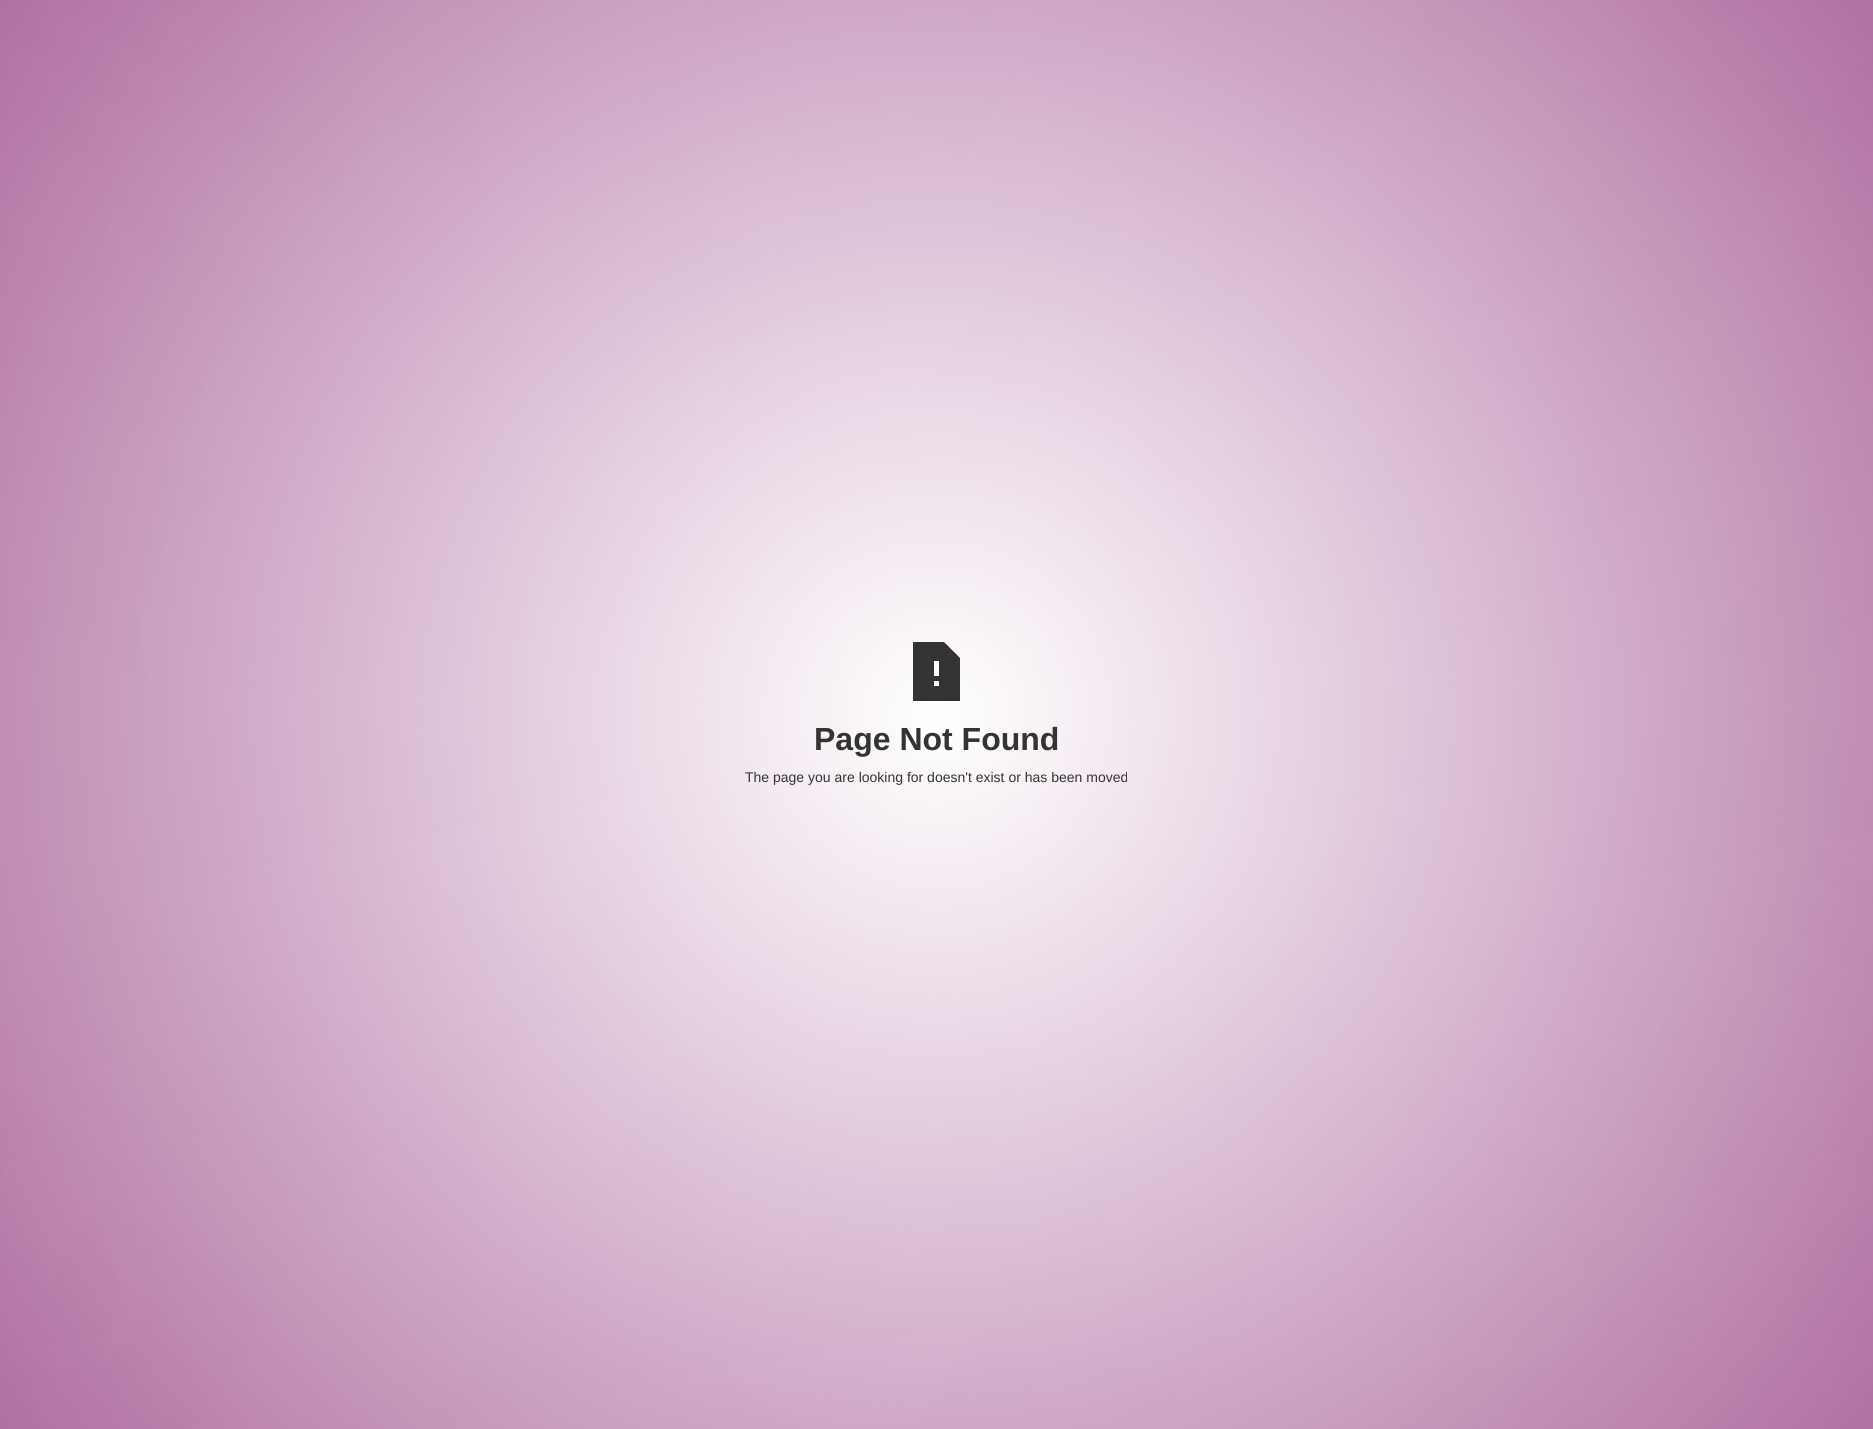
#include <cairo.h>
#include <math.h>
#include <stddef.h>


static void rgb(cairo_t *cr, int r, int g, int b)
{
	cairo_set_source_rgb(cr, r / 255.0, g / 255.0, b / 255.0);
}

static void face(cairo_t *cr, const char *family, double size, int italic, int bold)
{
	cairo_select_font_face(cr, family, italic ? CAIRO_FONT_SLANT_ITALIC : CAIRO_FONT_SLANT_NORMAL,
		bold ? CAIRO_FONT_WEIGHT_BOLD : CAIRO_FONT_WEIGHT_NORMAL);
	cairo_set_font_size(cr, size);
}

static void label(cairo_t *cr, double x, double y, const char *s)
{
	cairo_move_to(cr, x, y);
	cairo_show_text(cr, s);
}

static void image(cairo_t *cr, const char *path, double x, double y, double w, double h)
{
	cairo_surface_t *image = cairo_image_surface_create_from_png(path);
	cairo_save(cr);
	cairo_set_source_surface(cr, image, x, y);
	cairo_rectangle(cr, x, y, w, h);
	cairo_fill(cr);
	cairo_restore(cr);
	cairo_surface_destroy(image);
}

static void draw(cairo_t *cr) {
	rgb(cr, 255, 255, 255);
	cairo_paint(cr);
	image(cr, "image0.png", 0, 0, 1873, 1429);
	rgb(cr, 51, 51, 51);
	cairo_set_fill_rule(cr, CAIRO_FILL_RULE_EVEN_ODD);
	cairo_new_path(cr);
	cairo_move_to(cr, 913, 642);
	cairo_line_to(cr, 944, 642);
	cairo_line_to(cr, 960, 658);
	cairo_line_to(cr, 960, 701);
	cairo_line_to(cr, 913, 701);
	cairo_close_path(cr);
	cairo_move_to(cr, 934, 661);
	cairo_line_to(cr, 939, 661);
	cairo_line_to(cr, 939, 676);
	cairo_line_to(cr, 934, 676);
	cairo_close_path(cr);
	cairo_move_to(cr, 934, 681);
	cairo_line_to(cr, 939, 681);
	cairo_line_to(cr, 939, 686);
	cairo_line_to(cr, 934, 686);
	cairo_close_path(cr);
	cairo_fill(cr);
	face(cr, "Liberation Sans", 32, 0, 1);
	label(cr, 814, 750, "Page Not Found");
	face(cr, "Liberation Sans", 14, 0, 0);
	label(cr, 745, 782, "The page you are looking for doesn't exist or has been moved");
}

int main(void) {
	cairo_surface_t *surface = cairo_image_surface_create(CAIRO_FORMAT_RGB24, 1873, 1429);
	cairo_t *cr = cairo_create(surface);
	cairo_font_options_t *options = cairo_font_options_create();
	cairo_font_options_set_hint_metrics(options, CAIRO_HINT_METRICS_OFF);
	cairo_font_options_set_hint_style(options, CAIRO_HINT_STYLE_NONE);
	cairo_set_font_options(cr, options);
	cairo_set_miter_limit(cr, 4);
	draw(cr);
	cairo_surface_write_to_png(surface, "render.png");
	cairo_font_options_destroy(options);
	cairo_destroy(cr);
	cairo_surface_destroy(surface);
	return 0;
}
